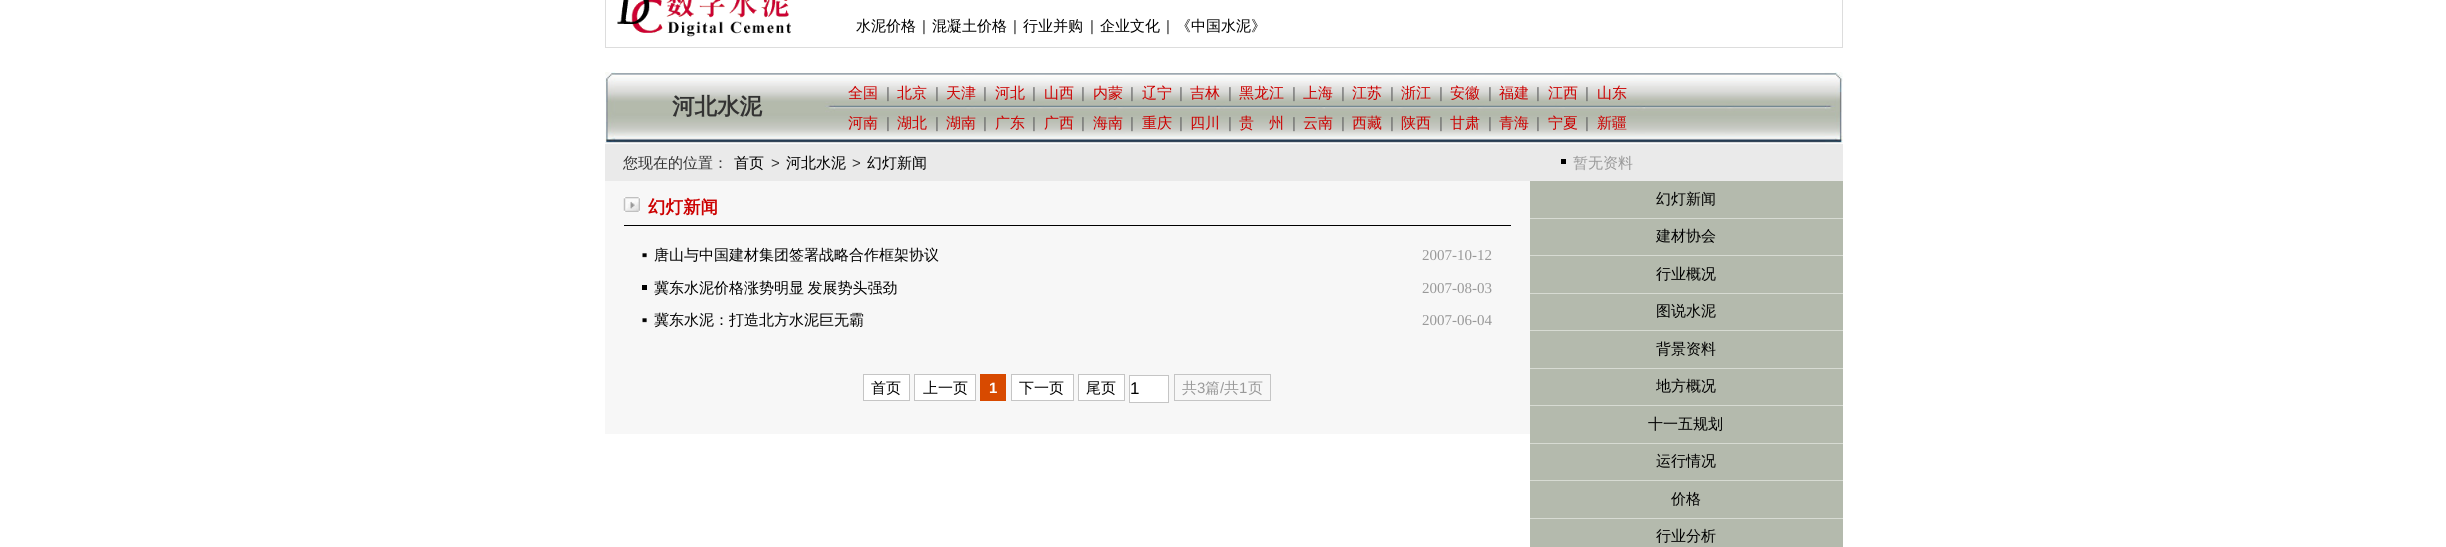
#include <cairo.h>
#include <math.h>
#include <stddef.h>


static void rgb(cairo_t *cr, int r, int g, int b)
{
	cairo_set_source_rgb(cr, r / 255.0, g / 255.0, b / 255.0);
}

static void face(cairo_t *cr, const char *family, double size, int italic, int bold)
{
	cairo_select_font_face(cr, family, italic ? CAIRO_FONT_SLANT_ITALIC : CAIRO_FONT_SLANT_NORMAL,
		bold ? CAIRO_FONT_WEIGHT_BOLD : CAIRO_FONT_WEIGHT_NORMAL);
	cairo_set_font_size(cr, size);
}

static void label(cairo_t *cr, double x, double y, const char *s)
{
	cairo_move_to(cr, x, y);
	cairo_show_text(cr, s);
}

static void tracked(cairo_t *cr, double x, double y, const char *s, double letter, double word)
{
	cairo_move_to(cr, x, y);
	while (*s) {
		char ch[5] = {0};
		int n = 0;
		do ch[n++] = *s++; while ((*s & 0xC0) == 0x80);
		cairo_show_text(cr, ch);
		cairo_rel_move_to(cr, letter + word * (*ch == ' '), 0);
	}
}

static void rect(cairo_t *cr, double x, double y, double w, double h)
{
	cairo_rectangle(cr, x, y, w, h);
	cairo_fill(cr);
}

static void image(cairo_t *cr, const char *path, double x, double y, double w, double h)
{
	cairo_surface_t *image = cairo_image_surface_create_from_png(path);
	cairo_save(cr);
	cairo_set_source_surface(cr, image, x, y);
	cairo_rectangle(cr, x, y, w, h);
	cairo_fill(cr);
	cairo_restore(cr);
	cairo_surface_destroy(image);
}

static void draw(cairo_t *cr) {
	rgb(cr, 255, 255, 255);
	cairo_paint(cr);
	cairo_rectangle(cr, 605.5, -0.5, 1237, 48);
	rgb(cr, 221, 221, 221);
	cairo_set_line_width(cr, 1);
	cairo_stroke(cr);
	image(cr, "image0.png", 617, 0, 174, 37);
	face(cr, "WenQuanYi Zen Hei Medium", 15, 0, 0);
	rgb(cr, 0, 0, 0);
	label(cr, 856, 31, "水泥价格");
	face(cr, "Liberation Sans", 15, 0, 0);
	rgb(cr, 51, 51, 51);
	label(cr, 922, 31, "|");
	face(cr, "WenQuanYi Zen Hei Medium", 15, 0, 0);
	rgb(cr, 0, 0, 0);
	label(cr, 932, 31, "混凝土价格");
	face(cr, "Liberation Sans", 15, 0, 0);
	rgb(cr, 51, 51, 51);
	label(cr, 1013, 31, "|");
	face(cr, "WenQuanYi Zen Hei Medium", 15, 0, 0);
	rgb(cr, 0, 0, 0);
	label(cr, 1023, 31, "行业并购");
	face(cr, "Liberation Sans", 15, 0, 0);
	rgb(cr, 51, 51, 51);
	label(cr, 1090, 31, "|");
	face(cr, "WenQuanYi Zen Hei Medium", 15, 0, 0);
	rgb(cr, 0, 0, 0);
	label(cr, 1100, 31, "企业文化");
	face(cr, "Liberation Sans", 15, 0, 0);
	rgb(cr, 51, 51, 51);
	label(cr, 1166, 31, "|");
	face(cr, "WenQuanYi Zen Hei Medium", 15, 0, 0);
	rgb(cr, 0, 0, 0);
	label(cr, 1176, 31, "《中国水泥》");
	image(cr, "image1.png", 605, 72, 1238, 72);
	face(cr, "WenQuanYi Zen Hei", 22.5, 0, 1);
	rgb(cr, 51, 51, 51);
	label(cr, 672, 114, "河北水泥");
	face(cr, "WenQuanYi Zen Hei Medium", 15, 0, 0);
	rgb(cr, 204, 0, 0);
	label(cr, 848, 98, "全国");
	face(cr, "Liberation Sans", 15, 0, 0);
	rgb(cr, 102, 102, 102);
	label(cr, 886, 98, "|");
	face(cr, "WenQuanYi Zen Hei Medium", 15, 0, 0);
	rgb(cr, 204, 0, 0);
	label(cr, 897, 98, "北京");
	face(cr, "Liberation Sans", 15, 0, 0);
	rgb(cr, 102, 102, 102);
	label(cr, 935, 98, "|");
	face(cr, "WenQuanYi Zen Hei Medium", 15, 0, 0);
	rgb(cr, 204, 0, 0);
	label(cr, 946, 98, "天津");
	face(cr, "Liberation Sans", 15, 0, 0);
	rgb(cr, 102, 102, 102);
	label(cr, 983, 98, "|");
	face(cr, "WenQuanYi Zen Hei Medium", 15, 0, 0);
	rgb(cr, 204, 0, 0);
	label(cr, 995, 98, "河北");
	face(cr, "Liberation Sans", 15, 0, 0);
	rgb(cr, 102, 102, 102);
	label(cr, 1032, 98, "|");
	face(cr, "WenQuanYi Zen Hei Medium", 15, 0, 0);
	rgb(cr, 204, 0, 0);
	label(cr, 1044, 98, "山西");
	face(cr, "Liberation Sans", 15, 0, 0);
	rgb(cr, 102, 102, 102);
	label(cr, 1081, 98, "|");
	face(cr, "WenQuanYi Zen Hei Medium", 15, 0, 0);
	rgb(cr, 204, 0, 0);
	label(cr, 1093, 98, "内蒙");
	face(cr, "Liberation Sans", 15, 0, 0);
	rgb(cr, 102, 102, 102);
	label(cr, 1130, 98, "|");
	face(cr, "WenQuanYi Zen Hei Medium", 15, 0, 0);
	rgb(cr, 204, 0, 0);
	label(cr, 1142, 98, "辽宁");
	face(cr, "Liberation Sans", 15, 0, 0);
	rgb(cr, 102, 102, 102);
	label(cr, 1179, 98, "|");
	face(cr, "WenQuanYi Zen Hei Medium", 15, 0, 0);
	rgb(cr, 204, 0, 0);
	label(cr, 1190, 98, "吉林");
	face(cr, "Liberation Sans", 15, 0, 0);
	rgb(cr, 102, 102, 102);
	label(cr, 1228, 98, "|");
	face(cr, "WenQuanYi Zen Hei Medium", 15, 0, 0);
	rgb(cr, 204, 0, 0);
	label(cr, 1239, 98, "黑龙江");
	face(cr, "Liberation Sans", 15, 0, 0);
	rgb(cr, 102, 102, 102);
	label(cr, 1292, 98, "|");
	face(cr, "WenQuanYi Zen Hei Medium", 15, 0, 0);
	rgb(cr, 204, 0, 0);
	label(cr, 1303, 98, "上海");
	face(cr, "Liberation Sans", 15, 0, 0);
	rgb(cr, 102, 102, 102);
	label(cr, 1341, 98, "|");
	face(cr, "WenQuanYi Zen Hei Medium", 15, 0, 0);
	rgb(cr, 204, 0, 0);
	label(cr, 1352, 98, "江苏");
	face(cr, "Liberation Sans", 15, 0, 0);
	rgb(cr, 102, 102, 102);
	label(cr, 1390, 98, "|");
	face(cr, "WenQuanYi Zen Hei Medium", 15, 0, 0);
	rgb(cr, 204, 0, 0);
	label(cr, 1401, 98, "浙江");
	face(cr, "Liberation Sans", 15, 0, 0);
	rgb(cr, 102, 102, 102);
	label(cr, 1439, 98, "|");
	face(cr, "WenQuanYi Zen Hei Medium", 15, 0, 0);
	rgb(cr, 204, 0, 0);
	label(cr, 1450, 98, "安徽");
	face(cr, "Liberation Sans", 15, 0, 0);
	rgb(cr, 102, 102, 102);
	label(cr, 1488, 98, "|");
	face(cr, "WenQuanYi Zen Hei Medium", 15, 0, 0);
	rgb(cr, 204, 0, 0);
	label(cr, 1499, 98, "福建");
	face(cr, "Liberation Sans", 15, 0, 0);
	rgb(cr, 102, 102, 102);
	label(cr, 1536, 98, "|");
	face(cr, "WenQuanYi Zen Hei Medium", 15, 0, 0);
	rgb(cr, 204, 0, 0);
	label(cr, 1548, 98, "江西");
	face(cr, "Liberation Sans", 15, 0, 0);
	rgb(cr, 102, 102, 102);
	label(cr, 1585, 98, "|");
	face(cr, "WenQuanYi Zen Hei Medium", 15, 0, 0);
	rgb(cr, 204, 0, 0);
	label(cr, 1597, 98, "山东");
	label(cr, 848, 128, "河南");
	face(cr, "Liberation Sans", 15, 0, 0);
	rgb(cr, 102, 102, 102);
	label(cr, 886, 128, "|");
	face(cr, "WenQuanYi Zen Hei Medium", 15, 0, 0);
	rgb(cr, 204, 0, 0);
	label(cr, 897, 128, "湖北");
	face(cr, "Liberation Sans", 15, 0, 0);
	rgb(cr, 102, 102, 102);
	label(cr, 935, 128, "|");
	face(cr, "WenQuanYi Zen Hei Medium", 15, 0, 0);
	rgb(cr, 204, 0, 0);
	label(cr, 946, 128, "湖南");
	face(cr, "Liberation Sans", 15, 0, 0);
	rgb(cr, 102, 102, 102);
	label(cr, 983, 128, "|");
	face(cr, "WenQuanYi Zen Hei Medium", 15, 0, 0);
	rgb(cr, 204, 0, 0);
	label(cr, 995, 128, "广东");
	face(cr, "Liberation Sans", 15, 0, 0);
	rgb(cr, 102, 102, 102);
	label(cr, 1032, 128, "|");
	face(cr, "WenQuanYi Zen Hei Medium", 15, 0, 0);
	rgb(cr, 204, 0, 0);
	label(cr, 1044, 128, "广西");
	face(cr, "Liberation Sans", 15, 0, 0);
	rgb(cr, 102, 102, 102);
	label(cr, 1081, 128, "|");
	face(cr, "WenQuanYi Zen Hei Medium", 15, 0, 0);
	rgb(cr, 204, 0, 0);
	label(cr, 1093, 128, "海南");
	face(cr, "Liberation Sans", 15, 0, 0);
	rgb(cr, 102, 102, 102);
	label(cr, 1130, 128, "|");
	face(cr, "WenQuanYi Zen Hei Medium", 15, 0, 0);
	rgb(cr, 204, 0, 0);
	label(cr, 1142, 128, "重庆");
	face(cr, "Liberation Sans", 15, 0, 0);
	rgb(cr, 102, 102, 102);
	label(cr, 1179, 128, "|");
	face(cr, "WenQuanYi Zen Hei Medium", 15, 0, 0);
	rgb(cr, 204, 0, 0);
	label(cr, 1190, 128, "四川");
	face(cr, "Liberation Sans", 15, 0, 0);
	rgb(cr, 102, 102, 102);
	label(cr, 1228, 128, "|");
	face(cr, "WenQuanYi Zen Hei Medium", 15, 0, 0);
	rgb(cr, 204, 0, 0);
	label(cr, 1239, 128, "贵　州");
	face(cr, "Liberation Sans", 15, 0, 0);
	rgb(cr, 102, 102, 102);
	label(cr, 1292, 128, "|");
	face(cr, "WenQuanYi Zen Hei Medium", 15, 0, 0);
	rgb(cr, 204, 0, 0);
	label(cr, 1303, 128, "云南");
	face(cr, "Liberation Sans", 15, 0, 0);
	rgb(cr, 102, 102, 102);
	label(cr, 1341, 128, "|");
	face(cr, "WenQuanYi Zen Hei Medium", 15, 0, 0);
	rgb(cr, 204, 0, 0);
	label(cr, 1352, 128, "西藏");
	face(cr, "Liberation Sans", 15, 0, 0);
	rgb(cr, 102, 102, 102);
	label(cr, 1390, 128, "|");
	face(cr, "WenQuanYi Zen Hei Medium", 15, 0, 0);
	rgb(cr, 204, 0, 0);
	label(cr, 1401, 128, "陕西");
	face(cr, "Liberation Sans", 15, 0, 0);
	rgb(cr, 102, 102, 102);
	label(cr, 1439, 128, "|");
	face(cr, "WenQuanYi Zen Hei Medium", 15, 0, 0);
	rgb(cr, 204, 0, 0);
	label(cr, 1450, 128, "甘肃");
	face(cr, "Liberation Sans", 15, 0, 0);
	rgb(cr, 102, 102, 102);
	label(cr, 1488, 128, "|");
	face(cr, "WenQuanYi Zen Hei Medium", 15, 0, 0);
	rgb(cr, 204, 0, 0);
	label(cr, 1499, 128, "青海");
	face(cr, "Liberation Sans", 15, 0, 0);
	rgb(cr, 102, 102, 102);
	label(cr, 1536, 128, "|");
	face(cr, "WenQuanYi Zen Hei Medium", 15, 0, 0);
	rgb(cr, 204, 0, 0);
	label(cr, 1548, 128, "宁夏");
	face(cr, "Liberation Sans", 15, 0, 0);
	rgb(cr, 102, 102, 102);
	label(cr, 1585, 128, "|");
	face(cr, "WenQuanYi Zen Hei Medium", 15, 0, 0);
	rgb(cr, 204, 0, 0);
	label(cr, 1597, 128, "新疆");
	rgb(cr, 234, 234, 234);
	rect(cr, 605, 144, 1238, 37);
	rgb(cr, 51, 51, 51);
	label(cr, 623, 168, "您现在的位置：");
	rgb(cr, 0, 0, 0);
	label(cr, 734, 168, "首页");
	face(cr, "Liberation Sans", 15, 0, 0);
	rgb(cr, 51, 51, 51);
	label(cr, 771, 168, ">");
	face(cr, "WenQuanYi Zen Hei Medium", 15, 0, 0);
	rgb(cr, 0, 0, 0);
	label(cr, 786, 168, "河北水泥");
	face(cr, "Liberation Sans", 15, 0, 0);
	rgb(cr, 51, 51, 51);
	label(cr, 852, 168, ">");
	face(cr, "WenQuanYi Zen Hei Medium", 15, 0, 0);
	rgb(cr, 0, 0, 0);
	label(cr, 867, 168, "幻灯新闻");
	rect(cr, 1561, 159, 5, 5);
	rgb(cr, 153, 153, 153);
	label(cr, 1573, 168, "暂无资料");
	rgb(cr, 247, 247, 247);
	rect(cr, 605, 181, 925, 253);
	rgb(cr, 0, 0, 0);
	rect(cr, 624, 225, 887, 1);
	image(cr, "image2.png", 623, 197, 17, 15);
	face(cr, "WenQuanYi Zen Hei", 17.5, 0, 1);
	rgb(cr, 204, 0, 0);
	label(cr, 648, 213, "幻灯新闻");
	image(cr, "image3.png", 642, 253, 5, 5);
	face(cr, "WenQuanYi Zen Hei Medium", 15, 0, 0);
	rgb(cr, 0, 0, 0);
	label(cr, 654, 260, "唐山与中国建材集团签署战略合作框架协议");
	face(cr, "Liberation Serif", 15, 0, 0);
	rgb(cr, 153, 153, 153);
	label(cr, 1422, 260, "2007-10-12");
	rgb(cr, 0, 0, 0);
	rect(cr, 642, 285, 5, 5);
	face(cr, "WenQuanYi Zen Hei Medium", 15, 0, 0);
	tracked(cr, 654, 293, "冀东水泥价格涨势明显 发展势头强劲", 0, -1);
	face(cr, "Liberation Serif", 15, 0, 0);
	rgb(cr, 153, 153, 153);
	label(cr, 1422, 293, "2007-08-03");
	image(cr, "image3.png", 642, 318, 5, 5);
	face(cr, "WenQuanYi Zen Hei Medium", 15, 0, 0);
	rgb(cr, 0, 0, 0);
	label(cr, 654, 325, "冀东水泥：打造北方水泥巨无霸");
	face(cr, "Liberation Serif", 15, 0, 0);
	rgb(cr, 153, 153, 153);
	label(cr, 1422, 325, "2007-06-04");
	rgb(cr, 255, 255, 255);
	cairo_rectangle(cr, 863.5, 374.5, 46, 26);
	cairo_fill_preserve(cr);
	rgb(cr, 197, 197, 197);
	cairo_stroke(cr);
	face(cr, "WenQuanYi Zen Hei Medium", 15, 0, 0);
	rgb(cr, 0, 0, 0);
	label(cr, 871, 393, "首页");
	rgb(cr, 255, 255, 255);
	cairo_rectangle(cr, 914.5, 374.5, 61, 26);
	cairo_fill_preserve(cr);
	rgb(cr, 197, 197, 197);
	cairo_stroke(cr);
	rgb(cr, 0, 0, 0);
	label(cr, 923, 393, "上一页");
	rgb(cr, 216, 74, 0);
	rect(cr, 980, 374, 26, 27);
	face(cr, "Liberation Sans", 15, 0, 1);
	rgb(cr, 255, 255, 255);
	label(cr, 989, 393, "1");
	cairo_rectangle(cr, 1011.5, 374.5, 62, 26);
	cairo_fill_preserve(cr);
	rgb(cr, 197, 197, 197);
	cairo_stroke(cr);
	face(cr, "WenQuanYi Zen Hei Medium", 15, 0, 0);
	rgb(cr, 0, 0, 0);
	label(cr, 1019, 393, "下一页");
	rgb(cr, 255, 255, 255);
	cairo_rectangle(cr, 1078.5, 374.5, 46, 26);
	cairo_fill_preserve(cr);
	rgb(cr, 197, 197, 197);
	cairo_stroke(cr);
	rgb(cr, 0, 0, 0);
	label(cr, 1086, 393, "尾页");
	rgb(cr, 255, 255, 255);
	cairo_rectangle(cr, 1129.5, 375.5, 39, 27);
	cairo_fill_preserve(cr);
	rgb(cr, 197, 197, 197);
	cairo_stroke(cr);
	face(cr, "Liberation Sans", 17, 0, 0);
	rgb(cr, 0, 0, 0);
	label(cr, 1130, 394, "1");
	cairo_rectangle(cr, 1174.5, 374.5, 96, 26);
	rgb(cr, 197, 197, 197);
	cairo_stroke(cr);
	face(cr, "WenQuanYi Zen Hei Medium", 15, 0, 0);
	rgb(cr, 153, 153, 153);
	label(cr, 1182, 393, "共");
	face(cr, "Liberation Sans", 15, 0, 0);
	label(cr, 1197, 393, "3");
	face(cr, "WenQuanYi Zen Hei Medium", 15, 0, 0);
	label(cr, 1205, 393, "篇");
	face(cr, "Liberation Sans", 15, 0, 0);
	label(cr, 1220, 393, "/");
	face(cr, "WenQuanYi Zen Hei Medium", 15, 0, 0);
	label(cr, 1224, 393, "共");
	face(cr, "Liberation Sans", 15, 0, 0);
	label(cr, 1239, 393, "1");
	face(cr, "WenQuanYi Zen Hei Medium", 15, 0, 0);
	label(cr, 1248, 393, "页");
	rgb(cr, 180, 186, 173);
	rect(cr, 1530, 181, 313, 37);
	rgb(cr, 215, 219, 211);
	rect(cr, 1530, 218, 313, 1);
	rgb(cr, 0, 0, 0);
	label(cr, 1656, 204, "幻灯新闻");
	rgb(cr, 180, 186, 173);
	rect(cr, 1530, 219, 313, 36);
	rgb(cr, 215, 219, 211);
	rect(cr, 1530, 255, 313, 1);
	rgb(cr, 0, 0, 0);
	label(cr, 1656, 241, "建材协会");
	rgb(cr, 180, 186, 173);
	rect(cr, 1530, 256, 313, 37);
	rgb(cr, 215, 219, 211);
	rect(cr, 1530, 293, 313, 1);
	rgb(cr, 0, 0, 0);
	label(cr, 1656, 279, "行业概况");
	rgb(cr, 180, 186, 173);
	rect(cr, 1530, 294, 313, 36);
	rgb(cr, 215, 219, 211);
	rect(cr, 1530, 330, 313, 1);
	rgb(cr, 0, 0, 0);
	label(cr, 1656, 316, "图说水泥");
	rgb(cr, 180, 186, 173);
	rect(cr, 1530, 331, 313, 37);
	rgb(cr, 215, 219, 211);
	rect(cr, 1530, 368, 313, 1);
	rgb(cr, 0, 0, 0);
	label(cr, 1656, 354, "背景资料");
	rgb(cr, 180, 186, 173);
	rect(cr, 1530, 369, 313, 36);
	rgb(cr, 215, 219, 211);
	rect(cr, 1530, 405, 313, 1);
	rgb(cr, 0, 0, 0);
	label(cr, 1656, 391, "地方概况");
	rgb(cr, 180, 186, 173);
	rect(cr, 1530, 406, 313, 37);
	rgb(cr, 215, 219, 211);
	rect(cr, 1530, 443, 313, 1);
	rgb(cr, 0, 0, 0);
	label(cr, 1648, 429, "十一五规划");
	rgb(cr, 180, 186, 173);
	rect(cr, 1530, 444, 313, 36);
	rgb(cr, 215, 219, 211);
	rect(cr, 1530, 480, 313, 1);
	rgb(cr, 0, 0, 0);
	label(cr, 1656, 466, "运行情况");
	rgb(cr, 180, 186, 173);
	rect(cr, 1530, 481, 313, 37);
	rgb(cr, 215, 219, 211);
	rect(cr, 1530, 518, 313, 1);
	rgb(cr, 0, 0, 0);
	label(cr, 1671, 504, "价格");
	rgb(cr, 180, 186, 173);
	rect(cr, 1530, 519, 313, 28);
	rgb(cr, 0, 0, 0);
	label(cr, 1656, 541, "行业分析");
}

int main(void) {
	cairo_surface_t *surface = cairo_image_surface_create(CAIRO_FORMAT_RGB24, 2446, 547);
	cairo_t *cr = cairo_create(surface);
	cairo_font_options_t *options = cairo_font_options_create();
	cairo_font_options_set_hint_metrics(options, CAIRO_HINT_METRICS_OFF);
	cairo_font_options_set_hint_style(options, CAIRO_HINT_STYLE_NONE);
	cairo_set_font_options(cr, options);
	cairo_set_miter_limit(cr, 4);
	draw(cr);
	cairo_surface_write_to_png(surface, "render.png");
	cairo_font_options_destroy(options);
	cairo_destroy(cr);
	cairo_surface_destroy(surface);
	return 0;
}
